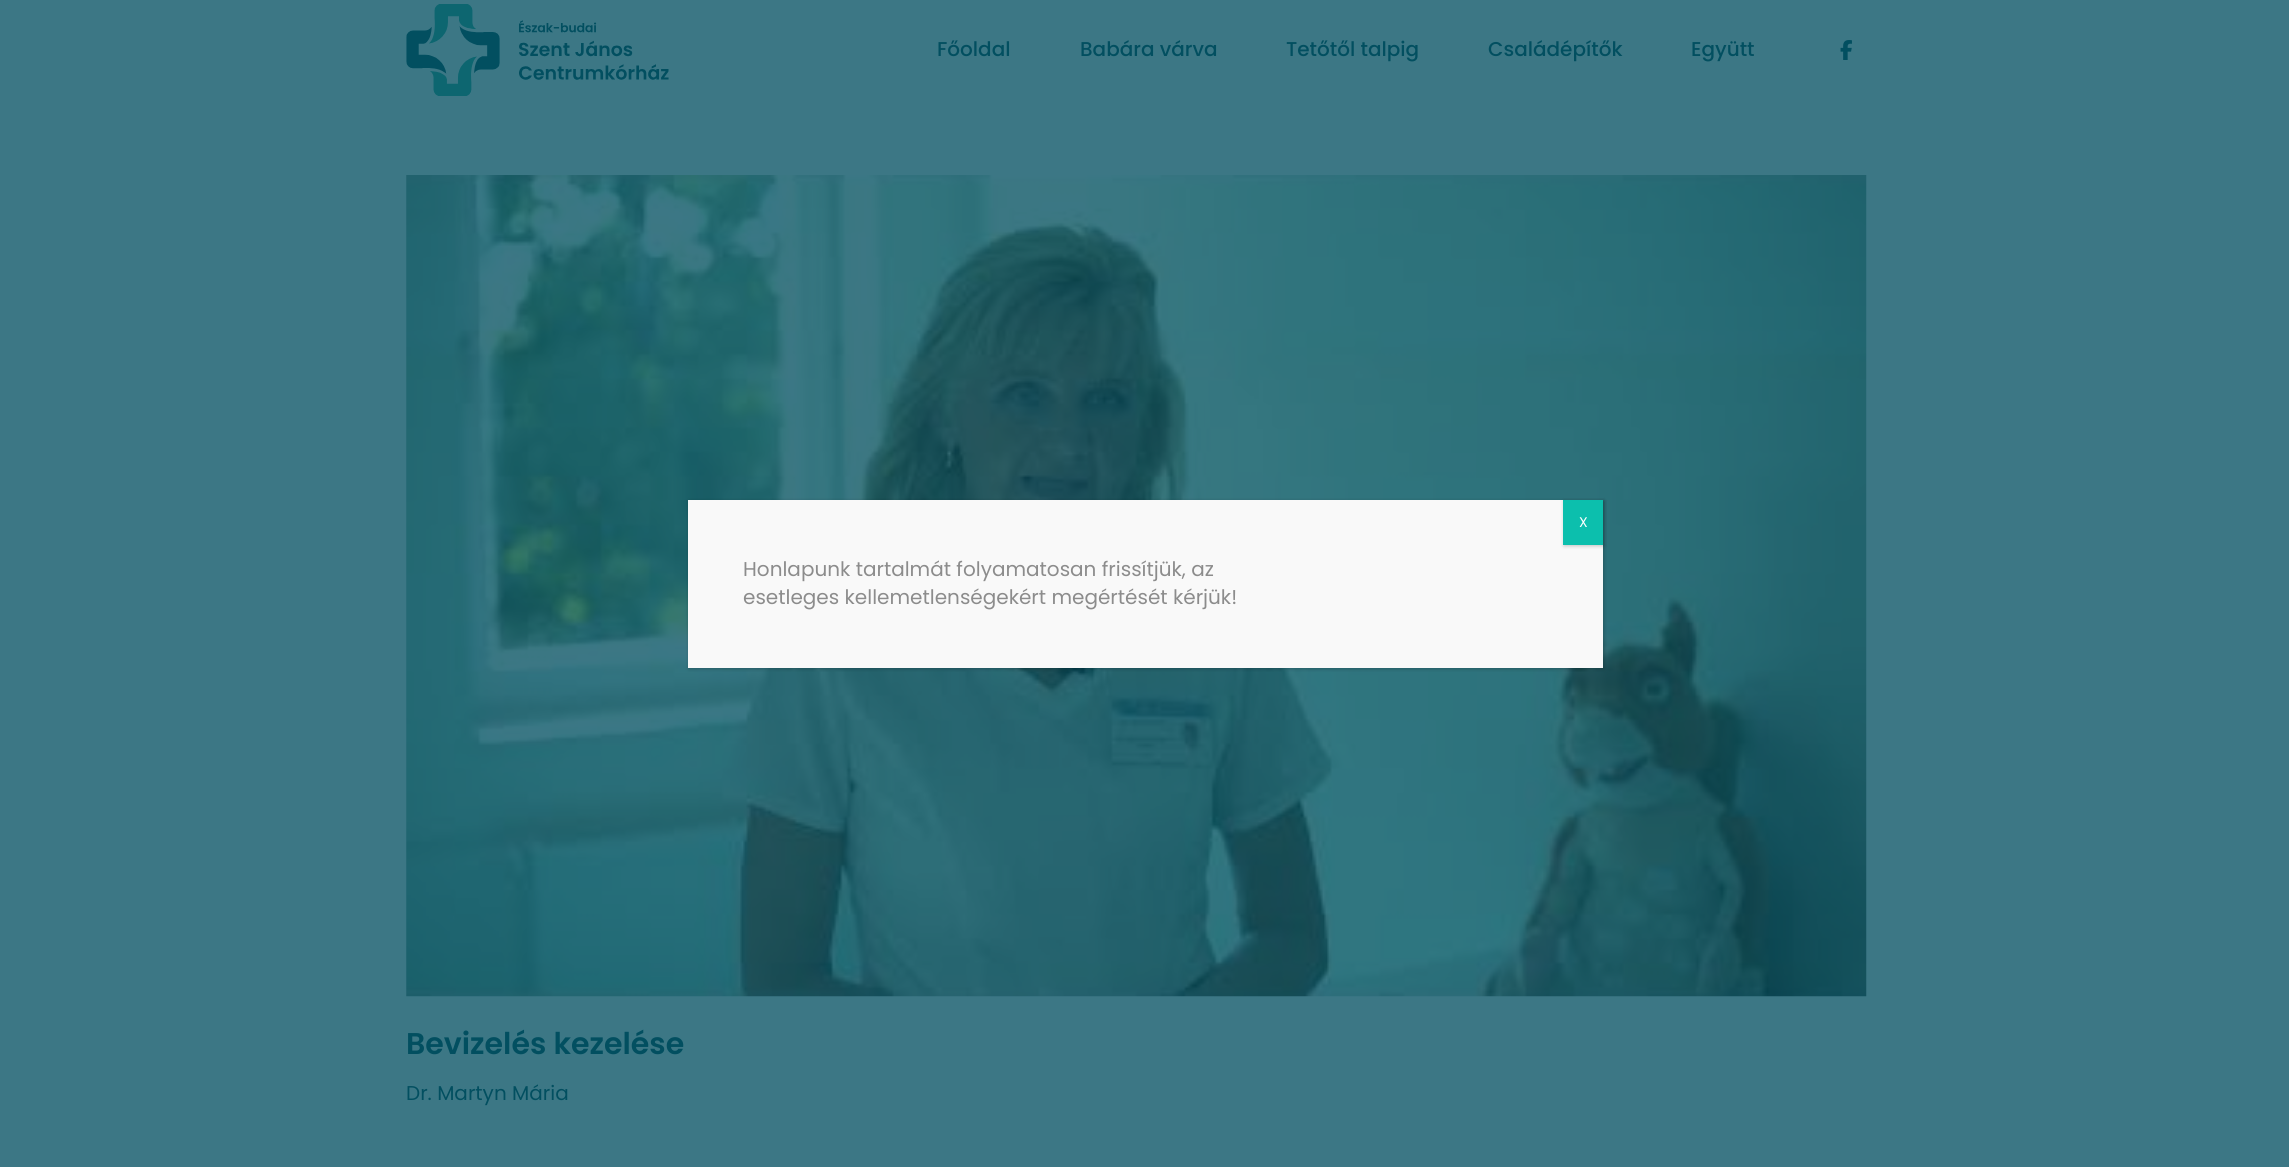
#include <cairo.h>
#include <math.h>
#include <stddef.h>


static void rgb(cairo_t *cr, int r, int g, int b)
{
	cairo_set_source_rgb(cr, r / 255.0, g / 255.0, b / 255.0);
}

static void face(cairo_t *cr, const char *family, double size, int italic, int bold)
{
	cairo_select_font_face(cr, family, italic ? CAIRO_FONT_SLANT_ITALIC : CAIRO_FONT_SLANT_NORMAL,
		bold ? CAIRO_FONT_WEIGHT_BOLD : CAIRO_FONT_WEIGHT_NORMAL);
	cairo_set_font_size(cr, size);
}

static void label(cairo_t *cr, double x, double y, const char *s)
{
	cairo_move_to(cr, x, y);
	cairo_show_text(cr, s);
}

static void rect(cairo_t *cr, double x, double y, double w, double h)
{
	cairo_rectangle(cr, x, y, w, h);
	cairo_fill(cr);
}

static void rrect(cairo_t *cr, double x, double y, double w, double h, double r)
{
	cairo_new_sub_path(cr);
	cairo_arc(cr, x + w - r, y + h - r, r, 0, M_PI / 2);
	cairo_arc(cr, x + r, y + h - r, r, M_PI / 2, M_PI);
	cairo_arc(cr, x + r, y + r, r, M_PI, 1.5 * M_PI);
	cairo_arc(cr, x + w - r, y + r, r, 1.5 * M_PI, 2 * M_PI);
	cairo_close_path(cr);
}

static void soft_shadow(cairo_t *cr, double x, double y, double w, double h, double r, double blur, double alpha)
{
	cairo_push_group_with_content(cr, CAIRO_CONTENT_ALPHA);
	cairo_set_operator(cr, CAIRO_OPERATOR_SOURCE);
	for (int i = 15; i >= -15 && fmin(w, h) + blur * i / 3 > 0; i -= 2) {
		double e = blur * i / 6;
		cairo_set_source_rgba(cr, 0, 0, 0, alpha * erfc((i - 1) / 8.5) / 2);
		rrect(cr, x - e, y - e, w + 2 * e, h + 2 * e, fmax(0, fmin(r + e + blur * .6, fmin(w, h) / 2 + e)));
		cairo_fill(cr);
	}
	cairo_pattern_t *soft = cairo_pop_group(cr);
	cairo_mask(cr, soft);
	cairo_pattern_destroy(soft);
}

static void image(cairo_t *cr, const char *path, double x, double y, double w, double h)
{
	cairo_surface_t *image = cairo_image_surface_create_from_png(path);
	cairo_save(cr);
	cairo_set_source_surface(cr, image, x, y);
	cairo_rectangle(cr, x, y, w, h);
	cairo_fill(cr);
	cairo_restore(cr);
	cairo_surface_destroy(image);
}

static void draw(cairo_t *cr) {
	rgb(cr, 60, 119, 133);
	cairo_paint(cr);
	image(cr, "image0.png", 406, 4, 263, 92);
	face(cr, "Poppins Medium", 20, 0, 0);
	rgb(cr, 2, 79, 96);
	label(cr, 937, 56, "Főoldal");
	label(cr, 1080, 56, "Babára várva");
	label(cr, 1286, 56, "Tetőtől talpig");
	label(cr, 1488, 56, "Családépítők");
	label(cr, 1691, 56, "Együtt");
	image(cr, "image1.png", 1840, 40, 12, 20);
	image(cr, "image2.png", 406, 175, 1461, 822);
	face(cr, "Poppins SemiBold", 30, 0, 0);
	label(cr, 406, 1054, "Bevizelés kezelése");
	face(cr, "Poppins", 20, 0, 0);
	label(cr, 406, 1100, "Dr. Martyn Mária");
	rgb(cr, 2, 2, 2);
	soft_shadow(cr, 689, 501, 915, 168, 0, 2, 0.23);
	rgb(cr, 249, 249, 249);
	rect(cr, 688, 500, 915, 168);
	rgb(cr, 2, 2, 2);
	soft_shadow(cr, 1564, 501, 40, 45, 0, 2, 0.23);
	rgb(cr, 12, 191, 173);
	rect(cr, 1563, 500, 40, 45);
	face(cr, "Poppins", 14, 0, 0);
	rgb(cr, 255, 255, 255);
	label(cr, 1579, 527, "X");
	face(cr, "Poppins", 20, 0, 0);
	rgb(cr, 140, 140, 140);
	label(cr, 743, 576, "Honlapunk tartalmát folyamatosan frissítjük, az");
	label(cr, 743, 604, "esetleges kellemetlenségekért megértését kérjük!");
}

int main(void) {
	cairo_surface_t *surface = cairo_image_surface_create(CAIRO_FORMAT_RGB24, 2289, 1167);
	cairo_t *cr = cairo_create(surface);
	cairo_font_options_t *options = cairo_font_options_create();
	cairo_font_options_set_hint_metrics(options, CAIRO_HINT_METRICS_OFF);
	cairo_font_options_set_hint_style(options, CAIRO_HINT_STYLE_NONE);
	cairo_set_font_options(cr, options);
	cairo_set_miter_limit(cr, 4);
	draw(cr);
	cairo_surface_write_to_png(surface, "render.png");
	cairo_font_options_destroy(options);
	cairo_destroy(cr);
	cairo_surface_destroy(surface);
	return 0;
}
